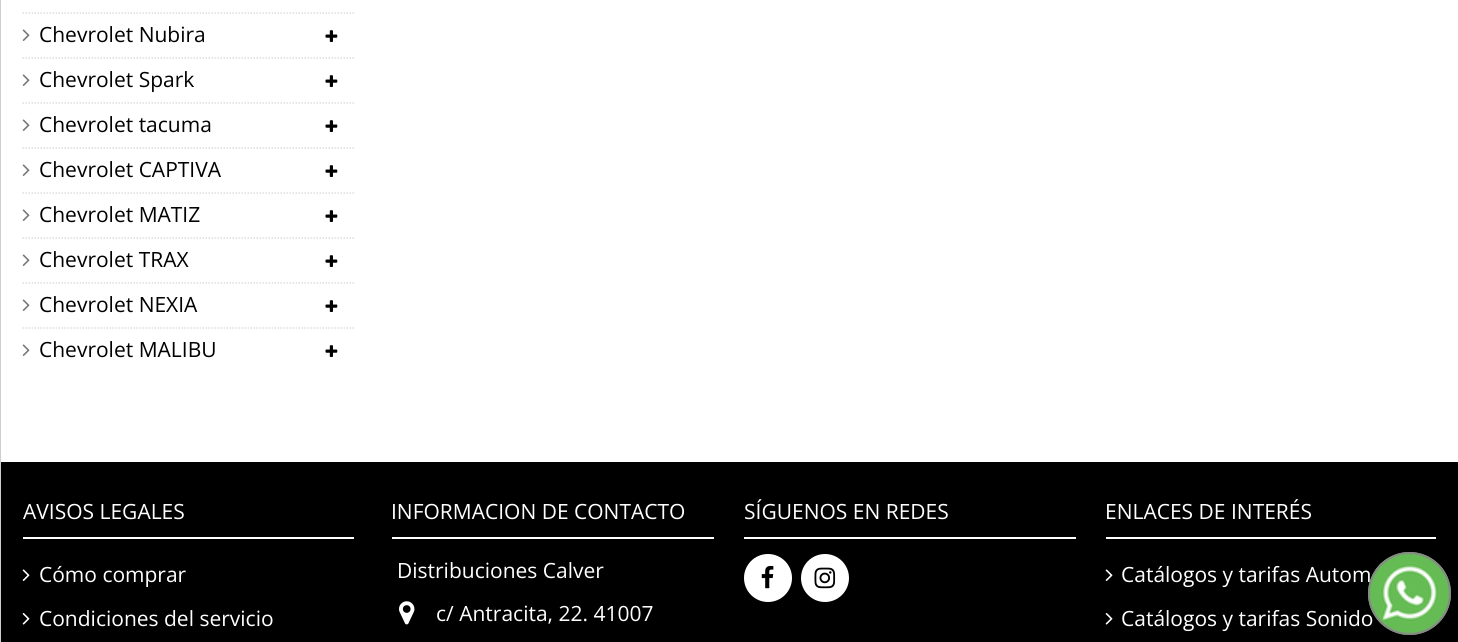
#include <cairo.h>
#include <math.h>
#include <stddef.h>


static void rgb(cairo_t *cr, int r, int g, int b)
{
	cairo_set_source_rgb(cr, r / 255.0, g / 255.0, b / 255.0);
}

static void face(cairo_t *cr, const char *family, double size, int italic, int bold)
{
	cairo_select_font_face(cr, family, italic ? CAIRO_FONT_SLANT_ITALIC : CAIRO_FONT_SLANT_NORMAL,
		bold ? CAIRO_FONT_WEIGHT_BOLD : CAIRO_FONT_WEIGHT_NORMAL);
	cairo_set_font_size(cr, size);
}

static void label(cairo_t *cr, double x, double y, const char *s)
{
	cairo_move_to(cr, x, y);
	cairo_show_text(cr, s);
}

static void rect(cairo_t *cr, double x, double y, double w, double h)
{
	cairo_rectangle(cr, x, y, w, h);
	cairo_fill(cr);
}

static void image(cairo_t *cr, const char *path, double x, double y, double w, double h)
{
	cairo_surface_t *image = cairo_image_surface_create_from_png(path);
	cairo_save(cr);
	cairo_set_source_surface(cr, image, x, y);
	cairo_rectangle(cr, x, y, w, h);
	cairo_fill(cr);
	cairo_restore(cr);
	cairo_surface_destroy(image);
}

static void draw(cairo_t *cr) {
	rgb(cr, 255, 255, 255);
	cairo_paint(cr);
	rgb(cr, 206, 206, 206);
	rect(cr, 0, 0, 1, 642);
	cairo_new_path(cr);
	cairo_move_to(cr, 22.5, 13);
	cairo_line_to(cr, 354, 13);
	rgb(cr, 221, 221, 221);
	cairo_set_line_width(cr, 1.5);
	cairo_set_dash(cr, (double[]){1.5, 1.5}, 2, 0);
	cairo_stroke(cr);
	image(cr, "image0.png", 22, 29, 8, 12);
	face(cr, "Open Sans", 21, 0, 0);
	rgb(cr, 0, 0, 0);
	label(cr, 39, 42, "Chevrolet Nubira");
	image(cr, "image1.png", 325, 30, 13, 12);
	cairo_new_path(cr);
	cairo_move_to(cr, 22.5, 58);
	cairo_line_to(cr, 354, 58);
	rgb(cr, 221, 221, 221);
	cairo_stroke(cr);
	image(cr, "image0.png", 22, 74, 8, 12);
	rgb(cr, 0, 0, 0);
	label(cr, 39, 87, "Chevrolet Spark");
	image(cr, "image1.png", 325, 75, 13, 12);
	cairo_new_path(cr);
	cairo_move_to(cr, 22.5, 103);
	cairo_line_to(cr, 354, 103);
	rgb(cr, 221, 221, 221);
	cairo_stroke(cr);
	image(cr, "image0.png", 22, 119, 8, 12);
	rgb(cr, 0, 0, 0);
	label(cr, 39, 132, "Chevrolet tacuma");
	image(cr, "image1.png", 325, 120, 13, 12);
	cairo_new_path(cr);
	cairo_move_to(cr, 22.5, 148);
	cairo_line_to(cr, 354, 148);
	rgb(cr, 221, 221, 221);
	cairo_stroke(cr);
	image(cr, "image0.png", 22, 164, 8, 12);
	rgb(cr, 0, 0, 0);
	label(cr, 39, 177, "Chevrolet CAPTIVA");
	image(cr, "image1.png", 325, 165, 13, 12);
	cairo_new_path(cr);
	cairo_move_to(cr, 22.5, 193);
	cairo_line_to(cr, 354, 193);
	rgb(cr, 221, 221, 221);
	cairo_stroke(cr);
	image(cr, "image0.png", 22, 209, 8, 12);
	rgb(cr, 0, 0, 0);
	label(cr, 39, 222, "Chevrolet MATIZ");
	image(cr, "image1.png", 325, 210, 13, 12);
	cairo_new_path(cr);
	cairo_move_to(cr, 22.5, 238);
	cairo_line_to(cr, 354, 238);
	rgb(cr, 221, 221, 221);
	cairo_stroke(cr);
	image(cr, "image0.png", 22, 254, 8, 12);
	rgb(cr, 0, 0, 0);
	label(cr, 39, 267, "Chevrolet TRAX");
	image(cr, "image1.png", 325, 255, 13, 12);
	cairo_new_path(cr);
	cairo_move_to(cr, 22.5, 283);
	cairo_line_to(cr, 354, 283);
	rgb(cr, 221, 221, 221);
	cairo_stroke(cr);
	image(cr, "image0.png", 22, 299, 8, 12);
	rgb(cr, 0, 0, 0);
	label(cr, 39, 312, "Chevrolet NEXIA");
	image(cr, "image1.png", 325, 300, 13, 12);
	cairo_new_path(cr);
	cairo_move_to(cr, 22.5, 328);
	cairo_line_to(cr, 354, 328);
	rgb(cr, 221, 221, 221);
	cairo_stroke(cr);
	image(cr, "image0.png", 22, 344, 8, 12);
	rgb(cr, 0, 0, 0);
	label(cr, 39, 357, "Chevrolet MALIBU");
	image(cr, "image1.png", 325, 345, 13, 12);
	rect(cr, 1, 462, 1457, 180);
	rgb(cr, 255, 255, 255);
	rect(cr, 23, 537, 331, 2);
	label(cr, 23, 519, "AVISOS LEGALES");
	image(cr, "image2.png", 22, 569, 8, 12);
	label(cr, 39, 582, "Cómo comprar");
	image(cr, "image3.png", 22, 613, 8, 12);
	label(cr, 39, 626, "Condiciones del servicio");
	rect(cr, 392, 537, 322, 2);
	label(cr, 391, 519, "INFORMACION DE CONTACTO");
	label(cr, 397, 578, "Distribuciones Calver");
	image(cr, "image4.png", 399, 601, 16, 24);
	label(cr, 436, 621, "c/ Antracita, 22. 41007");
	rect(cr, 744, 537, 332, 2);
	label(cr, 744, 519, "SÍGUENOS EN REDES");
	cairo_new_path(cr);
	cairo_arc(cr, 768, 578, 24, 0, 2 * M_PI);
	cairo_fill(cr);
	image(cr, "image5.png", 761, 565, 13, 24);
	cairo_arc(cr, 825, 578, 24, 0, 2 * M_PI);
	cairo_fill(cr);
	image(cr, "image6.png", 814, 567, 22, 22);
	rect(cr, 1106, 537, 330, 2);
	label(cr, 1105, 519, "ENLACES DE INTERÉS");
	image(cr, "image2.png", 1105, 569, 8, 12);
	label(cr, 1121, 582, "Catálogos y tarifas Autom");
	image(cr, "image3.png", 1105, 613, 8, 12);
	label(cr, 1121, 626, "Catálogos y tarifas Sonido");
	rgb(cr, 101, 188, 84);
	cairo_new_path(cr);
	cairo_arc(cr, 1409.5, 593.5, 41.5, 0, 2 * M_PI);
	cairo_fill(cr);
	image(cr, "image7.png", 1375, 559, 68, 68);
	cairo_arc(cr, 1409.5, 593.5, 40.5, 0, 2 * M_PI);
	rgb(cr, 136, 136, 136);
	cairo_set_line_width(cr, 2);
	cairo_set_dash(cr, NULL, 0, 0);
	cairo_stroke(cr);
}

int main(void) {
	cairo_surface_t *surface = cairo_image_surface_create(CAIRO_FORMAT_RGB24, 1458, 642);
	cairo_t *cr = cairo_create(surface);
	cairo_font_options_t *options = cairo_font_options_create();
	cairo_font_options_set_hint_metrics(options, CAIRO_HINT_METRICS_OFF);
	cairo_font_options_set_hint_style(options, CAIRO_HINT_STYLE_NONE);
	cairo_set_font_options(cr, options);
	cairo_set_miter_limit(cr, 4);
	draw(cr);
	cairo_surface_write_to_png(surface, "render.png");
	cairo_font_options_destroy(options);
	cairo_destroy(cr);
	cairo_surface_destroy(surface);
	return 0;
}
